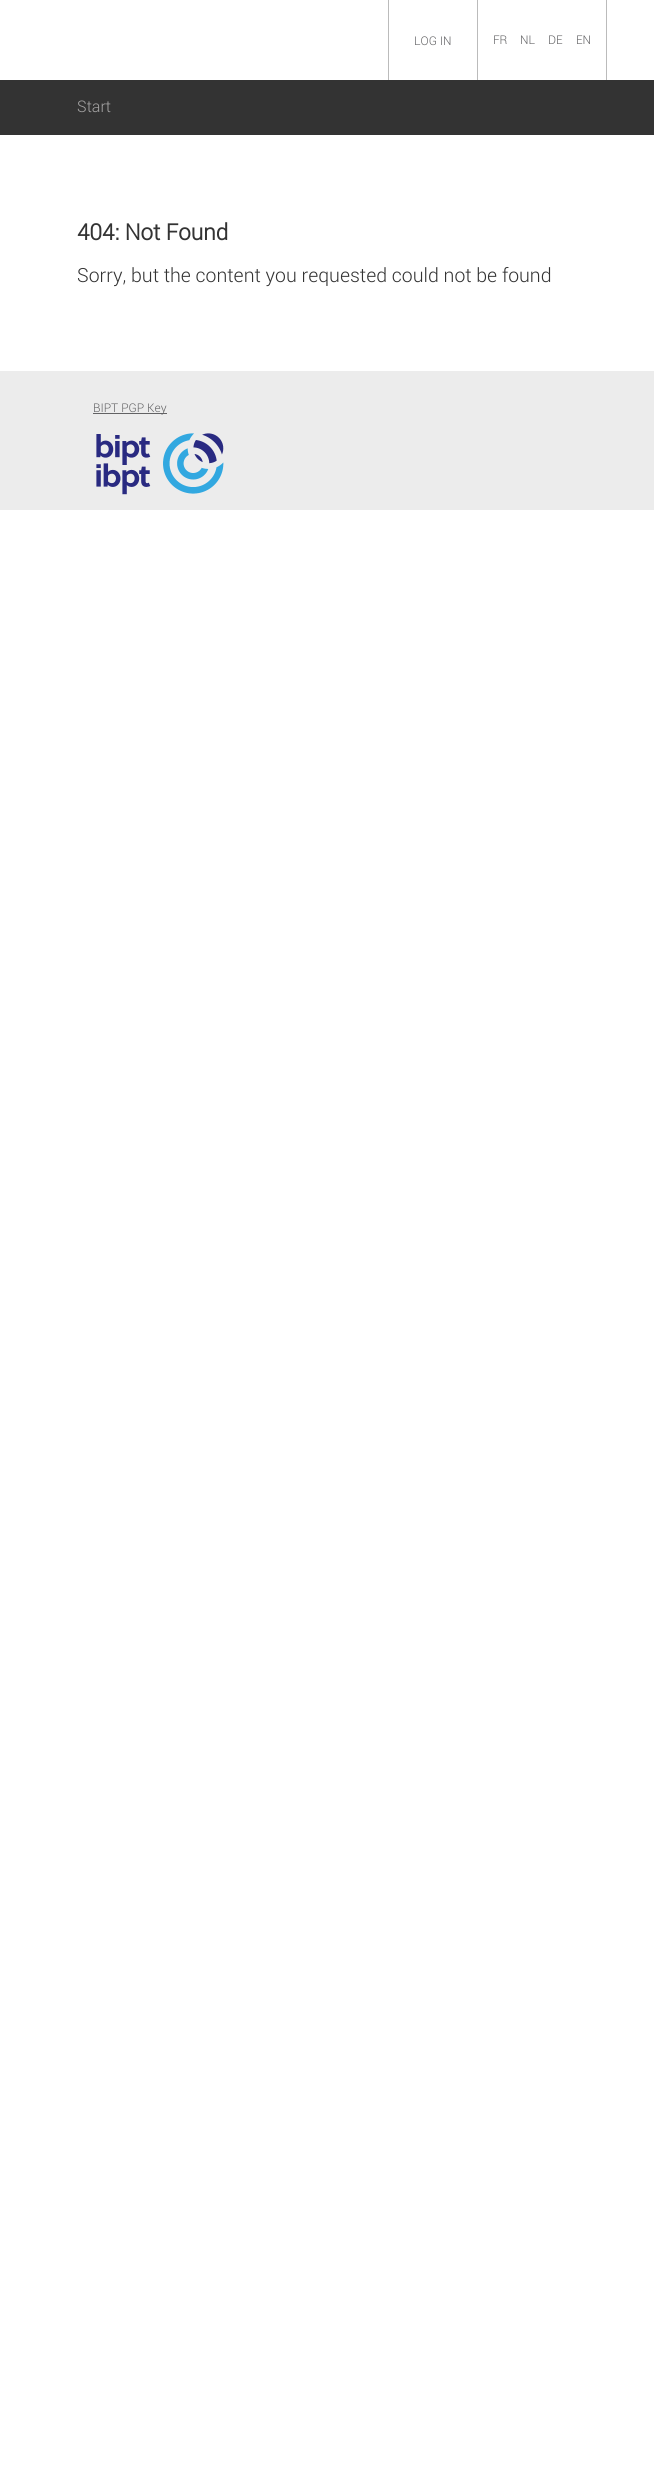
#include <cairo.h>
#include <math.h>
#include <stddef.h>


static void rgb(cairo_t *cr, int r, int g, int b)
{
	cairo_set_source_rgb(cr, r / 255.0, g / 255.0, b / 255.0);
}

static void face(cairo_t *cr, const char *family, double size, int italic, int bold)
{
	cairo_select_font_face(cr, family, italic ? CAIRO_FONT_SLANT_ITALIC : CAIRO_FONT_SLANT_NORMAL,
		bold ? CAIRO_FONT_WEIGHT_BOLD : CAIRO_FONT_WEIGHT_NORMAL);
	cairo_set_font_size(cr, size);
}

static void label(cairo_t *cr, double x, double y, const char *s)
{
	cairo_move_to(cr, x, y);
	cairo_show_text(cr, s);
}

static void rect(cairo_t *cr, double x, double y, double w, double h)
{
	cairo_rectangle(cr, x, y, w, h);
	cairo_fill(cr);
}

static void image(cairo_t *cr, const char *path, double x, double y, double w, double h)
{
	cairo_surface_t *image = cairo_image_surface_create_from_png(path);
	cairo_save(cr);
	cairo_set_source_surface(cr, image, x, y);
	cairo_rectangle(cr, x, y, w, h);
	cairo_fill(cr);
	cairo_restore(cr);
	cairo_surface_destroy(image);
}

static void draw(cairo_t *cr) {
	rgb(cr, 255, 255, 255);
	cairo_paint(cr);
	rgb(cr, 187, 187, 187);
	rect(cr, 388, 0, 1, 80);
	face(cr, "Roboto Light", 12, 0, 0);
	rgb(cr, 98, 98, 100);
	label(cr, 414, 45, "LOG IN");
	rgb(cr, 187, 187, 187);
	rect(cr, 606, 0, 1, 80);
	rect(cr, 477, 0, 1, 80);
	rgb(cr, 98, 98, 100);
	label(cr, 493, 44, "FR");
	label(cr, 520, 44, "NL");
	label(cr, 548, 44, "DE");
	label(cr, 576, 44, "EN");
	rgb(cr, 51, 51, 51);
	rect(cr, 0, 80, 654, 55);
	face(cr, "Roboto Light", 16, 0, 0);
	rgb(cr, 166, 165, 165);
	label(cr, 77, 112, "Start");
	face(cr, "Roboto", 22.5, 0, 1);
	rgb(cr, 51, 51, 51);
	label(cr, 77, 240, "404: Not Found");
	face(cr, "Roboto Light", 19.5, 0, 0);
	label(cr, 77, 282, "Sorry, but the content you requested could not be found");
	rgb(cr, 236, 236, 236);
	rect(cr, 0, 371, 654, 139);
	rgb(cr, 98, 98, 100);
	rect(cr, 93, 413, 74, 1);
	face(cr, "Roboto Light", 12, 0, 0);
	label(cr, 93, 412, "BIPT PGP Key");
	image(cr, "image0.png", 96, 433, 128, 62);
}

int main(void) {
	cairo_surface_t *surface = cairo_image_surface_create(CAIRO_FORMAT_RGB24, 654, 2478);
	cairo_t *cr = cairo_create(surface);
	cairo_font_options_t *options = cairo_font_options_create();
	cairo_font_options_set_hint_metrics(options, CAIRO_HINT_METRICS_OFF);
	cairo_font_options_set_hint_style(options, CAIRO_HINT_STYLE_NONE);
	cairo_set_font_options(cr, options);
	cairo_set_miter_limit(cr, 4);
	draw(cr);
	cairo_surface_write_to_png(surface, "render.png");
	cairo_font_options_destroy(options);
	cairo_destroy(cr);
	cairo_surface_destroy(surface);
	return 0;
}
